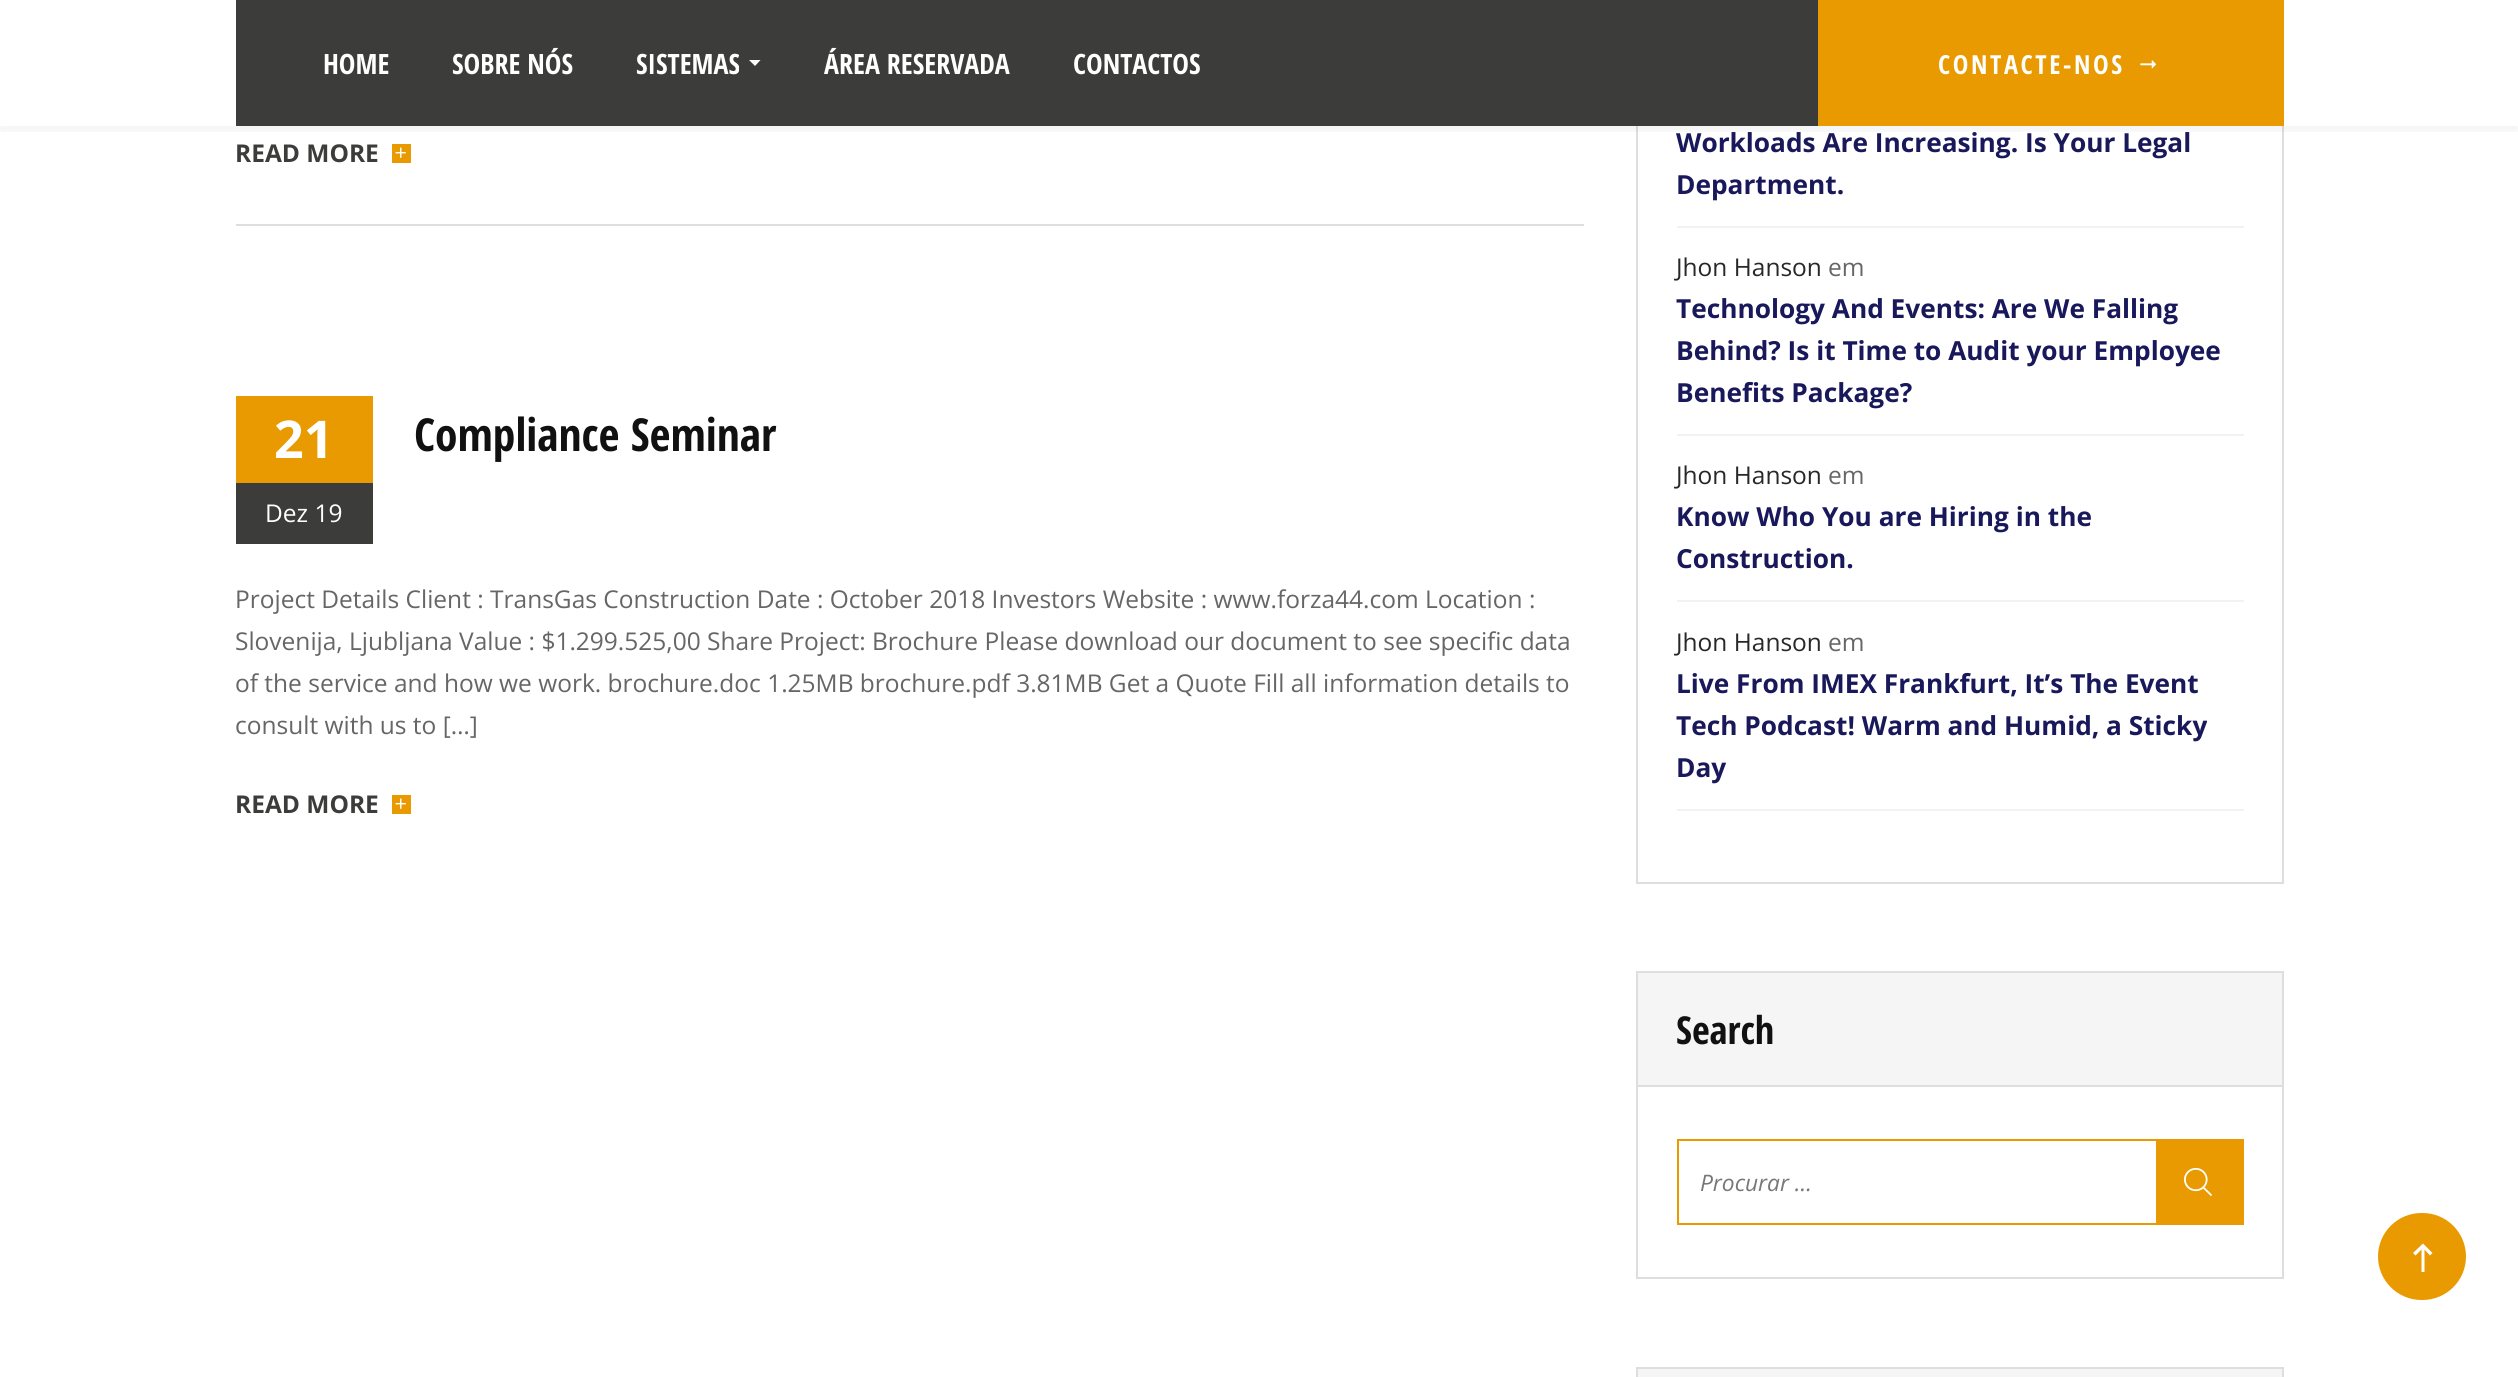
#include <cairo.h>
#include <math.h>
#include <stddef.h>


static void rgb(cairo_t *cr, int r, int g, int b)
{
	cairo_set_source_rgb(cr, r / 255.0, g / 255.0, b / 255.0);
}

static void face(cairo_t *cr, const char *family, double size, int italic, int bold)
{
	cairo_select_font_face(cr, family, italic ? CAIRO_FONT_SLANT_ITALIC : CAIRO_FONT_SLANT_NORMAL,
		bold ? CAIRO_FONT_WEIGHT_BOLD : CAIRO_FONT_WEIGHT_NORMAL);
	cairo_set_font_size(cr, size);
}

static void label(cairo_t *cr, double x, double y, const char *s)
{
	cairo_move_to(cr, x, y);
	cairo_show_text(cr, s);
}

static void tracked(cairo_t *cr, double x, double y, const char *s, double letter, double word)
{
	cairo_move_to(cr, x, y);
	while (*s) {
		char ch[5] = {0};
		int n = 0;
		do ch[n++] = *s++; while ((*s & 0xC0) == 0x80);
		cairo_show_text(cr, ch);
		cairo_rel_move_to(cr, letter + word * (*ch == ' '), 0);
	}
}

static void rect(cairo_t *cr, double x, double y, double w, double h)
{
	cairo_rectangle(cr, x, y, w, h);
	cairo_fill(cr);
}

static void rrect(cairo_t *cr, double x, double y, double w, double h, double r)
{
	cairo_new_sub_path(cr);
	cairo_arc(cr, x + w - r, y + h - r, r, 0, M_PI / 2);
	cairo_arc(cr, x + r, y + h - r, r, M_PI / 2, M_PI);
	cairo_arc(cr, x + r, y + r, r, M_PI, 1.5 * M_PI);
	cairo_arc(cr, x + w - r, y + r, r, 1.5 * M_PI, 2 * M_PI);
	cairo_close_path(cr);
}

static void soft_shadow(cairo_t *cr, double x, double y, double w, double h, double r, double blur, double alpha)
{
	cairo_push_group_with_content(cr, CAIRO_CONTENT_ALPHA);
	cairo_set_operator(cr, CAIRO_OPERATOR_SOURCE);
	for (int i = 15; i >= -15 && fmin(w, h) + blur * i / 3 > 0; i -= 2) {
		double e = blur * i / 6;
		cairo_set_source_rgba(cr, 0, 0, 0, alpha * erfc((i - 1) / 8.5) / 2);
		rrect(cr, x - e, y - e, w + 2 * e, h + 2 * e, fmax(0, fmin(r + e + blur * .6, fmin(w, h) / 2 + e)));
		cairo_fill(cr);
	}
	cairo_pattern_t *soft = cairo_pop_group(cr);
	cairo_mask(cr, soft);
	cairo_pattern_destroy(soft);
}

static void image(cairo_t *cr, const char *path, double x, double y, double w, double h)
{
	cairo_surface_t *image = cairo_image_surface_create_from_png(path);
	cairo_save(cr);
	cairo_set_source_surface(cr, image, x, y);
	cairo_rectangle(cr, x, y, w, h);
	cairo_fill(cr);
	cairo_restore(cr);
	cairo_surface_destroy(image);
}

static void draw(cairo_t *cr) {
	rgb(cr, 255, 255, 255);
	cairo_paint(cr);
	rgb(cr, 233, 154, 0);
	rect(cr, 392, 144, 19, 19);
	cairo_rectangle(cr, 1637, -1, 646, 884);
	rgb(cr, 222, 222, 222);
	cairo_stroke(cr);
	cairo_save(cr);
	cairo_rectangle(cr, 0, 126, 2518, 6);
	cairo_clip(cr);
	rgb(cr, 0, 0, 0);
	soft_shadow(cr, 0, 5, 2518, 126, 0, 5, 0.05);
	cairo_restore(cr);
	rgb(cr, 60, 60, 59);
	rect(cr, 236, 0, 1582, 126);
	face(cr, "Open Sans Condensed", 28, 0, 1);
	rgb(cr, 255, 255, 255);
	label(cr, 323, 74, "HOME");
	label(cr, 452, 74, "SOBRE NÓS");
	label(cr, 636, 74, "SISTEMAS");
	cairo_new_path(cr);
	cairo_move_to(cr, 749, 60);
	cairo_line_to(cr, 760.5, 60);
	cairo_line_to(cr, 755, 66);
	cairo_close_path(cr);
	cairo_fill(cr);
	label(cr, 824, 74, "ÁREA RESERVADA");
	label(cr, 1073, 74, "CONTACTOS");
	rgb(cr, 233, 154, 0);
	rect(cr, 1818, 0, 466, 126);
	face(cr, "Open Sans Condensed", 26.25, 0, 1);
	rgb(cr, 255, 255, 255);
	tracked(cr, 1938, 74, "CONTACTE-NOS", 2.6, 0);
	image(cr, "image0.png", 2140, 60, 16, 9);
	face(cr, "Open Sans", 24.5, 0, 1);
	rgb(cr, 60, 60, 59);
	label(cr, 235, 162, "READ MORE");
	image(cr, "image1.png", 395, 147, 11, 11);
	rgb(cr, 222, 222, 222);
	rect(cr, 236, 224, 1348, 2);
	rgb(cr, 233, 154, 0);
	rect(cr, 236, 396, 137, 87);
	face(cr, "Open Sans", 52, 0, 1);
	rgb(cr, 255, 255, 255);
	label(cr, 274, 458, "21");
	rgb(cr, 60, 60, 59);
	rect(cr, 236, 483, 137, 61);
	face(cr, "Open Sans", 24.5, 0, 0);
	rgb(cr, 255, 255, 255);
	label(cr, 265, 522, "Dez 19");
	face(cr, "Open Sans Condensed", 45.5, 0, 1);
	rgb(cr, 17, 17, 17);
	label(cr, 414, 451, "Compliance Seminar");
	face(cr, "Open Sans", 24.5, 0, 0);
	rgb(cr, 102, 102, 102);
	label(cr, 235, 608, "Project Details Client : TransGas Construction Date : October 2018 Investors Website : www.forza44.com Location :");
	label(cr, 235, 650, "Slovenija, Ljubljana Value : $1.299.525,00 Share Project: Brochure Please download our document to see specific data");
	label(cr, 235, 692, "of the service and how we work. brochure.doc 1.25MB brochure.pdf 3.81MB Get a Quote Fill all information details to");
	label(cr, 235, 734, "consult with us to […]");
	face(cr, "Open Sans", 24.5, 0, 1);
	rgb(cr, 60, 60, 59);
	label(cr, 235, 813, "READ MORE");
	rgb(cr, 233, 154, 0);
	rect(cr, 392, 795, 19, 19);
	image(cr, "image1.png", 395, 798, 11, 11);
	rgb(cr, 242, 242, 242);
	rect(cr, 1677, 226, 567, 2);
	face(cr, "Open Sans", 26.25, 0, 1);
	rgb(cr, 24, 24, 91);
	label(cr, 1676, 152, "Workloads Are Increasing. Is Your Legal");
	label(cr, 1676, 194, "Department.");
	rgb(cr, 242, 242, 242);
	rect(cr, 1677, 434, 567, 2);
	face(cr, "Open Sans", 24.5, 0, 0);
	rgb(cr, 40, 40, 40);
	label(cr, 1676, 276, "Jhon Hanson");
	rgb(cr, 102, 102, 102);
	label(cr, 1828, 276, "em");
	face(cr, "Open Sans", 26.25, 0, 1);
	rgb(cr, 24, 24, 91);
	label(cr, 1676, 318, "Technology And Events: Are We Falling");
	label(cr, 1676, 360, "Behind? Is it Time to Audit your Employee");
	label(cr, 1676, 402, "Benefits Package?");
	rgb(cr, 242, 242, 242);
	rect(cr, 1677, 600, 567, 2);
	face(cr, "Open Sans", 24.5, 0, 0);
	rgb(cr, 40, 40, 40);
	label(cr, 1676, 484, "Jhon Hanson");
	rgb(cr, 102, 102, 102);
	label(cr, 1828, 484, "em");
	face(cr, "Open Sans", 26.25, 0, 1);
	rgb(cr, 24, 24, 91);
	label(cr, 1676, 526, "Know Who You are Hiring in the");
	label(cr, 1676, 568, "Construction.");
	rgb(cr, 242, 242, 242);
	rect(cr, 1677, 809, 567, 2);
	face(cr, "Open Sans", 24.5, 0, 0);
	rgb(cr, 40, 40, 40);
	label(cr, 1676, 651, "Jhon Hanson");
	rgb(cr, 102, 102, 102);
	label(cr, 1828, 651, "em");
	face(cr, "Open Sans", 26.25, 0, 1);
	rgb(cr, 24, 24, 91);
	label(cr, 1676, 693, "Live From IMEX Frankfurt, It’s The Event");
	label(cr, 1676, 735, "Tech Podcast! Warm and Humid, a Sticky");
	label(cr, 1676, 777, "Day");
	cairo_rectangle(cr, 1637, 972, 646, 306);
	rgb(cr, 222, 222, 222);
	cairo_stroke(cr);
	rgb(cr, 245, 245, 245);
	rect(cr, 1638, 973, 644, 112);
	rgb(cr, 222, 222, 222);
	rect(cr, 1638, 1085, 644, 2);
	face(cr, "Open Sans Condensed", 38.5, 0, 1);
	rgb(cr, 17, 17, 17);
	label(cr, 1676, 1044, "Search");
	cairo_rectangle(cr, 1678, 1140, 565, 84);
	rgb(cr, 233, 154, 0);
	cairo_stroke(cr);
	face(cr, "Open Sans", 22.75, 1, 0);
	rgb(cr, 119, 119, 119);
	label(cr, 1700, 1191, "Procurar ...");
	rgb(cr, 233, 154, 0);
	rect(cr, 2156, 1141, 86, 82);
	image(cr, "image2.png", 2184, 1167, 28, 29);
	rgb(cr, 222, 222, 222);
	rect(cr, 1636, 1367, 648, 2);
	rect(cr, 2282, 1367, 2, 10);
	rect(cr, 1636, 1367, 2, 10);
	rgb(cr, 245, 245, 245);
	rect(cr, 1638, 1369, 644, 8);
	rgb(cr, 233, 154, 0);
	rrect(cr, 2378, 1213, 88, 87, 43.5);
	cairo_fill(cr);
	rgb(cr, 255, 255, 255);
	cairo_new_path(cr);
	cairo_move_to(cr, 2421.5, 1272);
	cairo_line_to(cr, 2421.5, 1249.5);
	cairo_line_to(cr, 2415.5, 1255.5);
	cairo_line_to(cr, 2413, 1253);
	cairo_line_to(cr, 2423, 1243.5);
	cairo_line_to(cr, 2432.5, 1253);
	cairo_line_to(cr, 2430, 1255.5);
	cairo_line_to(cr, 2424.5, 1249.5);
	cairo_line_to(cr, 2424.5, 1272);
	cairo_close_path(cr);
	cairo_fill(cr);
}

int main(void) {
	cairo_surface_t *surface = cairo_image_surface_create(CAIRO_FORMAT_RGB24, 2518, 1377);
	cairo_t *cr = cairo_create(surface);
	cairo_font_options_t *options = cairo_font_options_create();
	cairo_font_options_set_hint_metrics(options, CAIRO_HINT_METRICS_OFF);
	cairo_font_options_set_hint_style(options, CAIRO_HINT_STYLE_NONE);
	cairo_set_font_options(cr, options);
	cairo_set_miter_limit(cr, 4);
	draw(cr);
	cairo_surface_write_to_png(surface, "render.png");
	cairo_font_options_destroy(options);
	cairo_destroy(cr);
	cairo_surface_destroy(surface);
	return 0;
}
